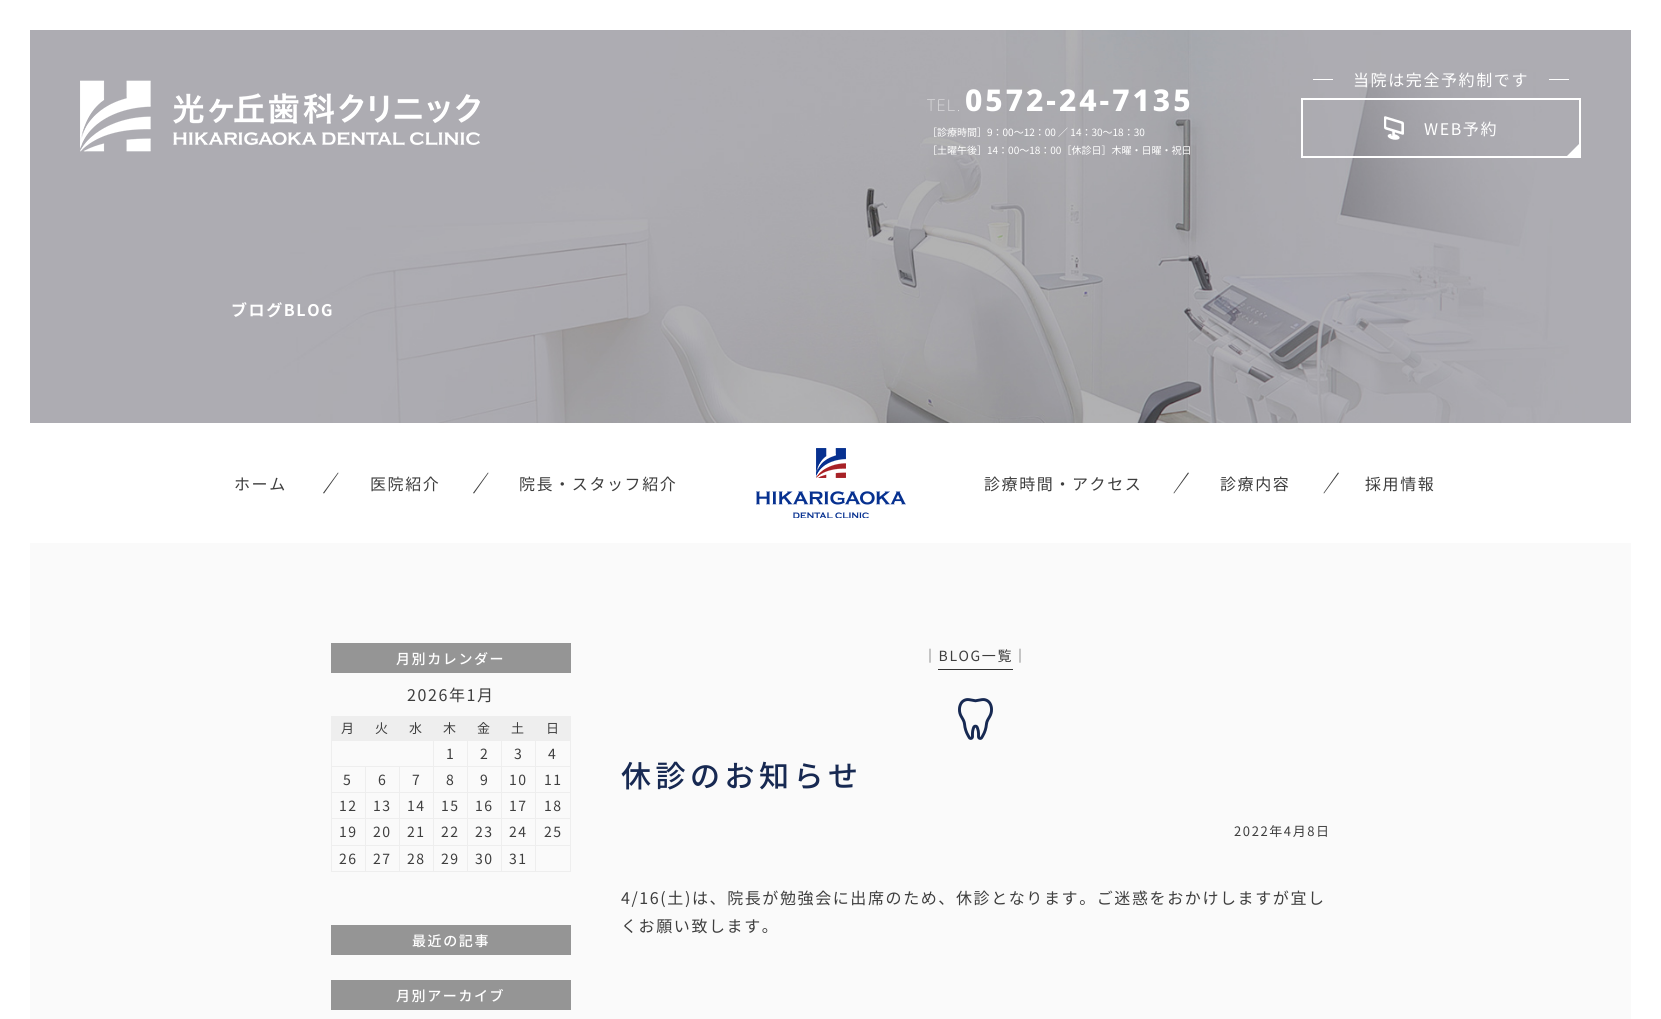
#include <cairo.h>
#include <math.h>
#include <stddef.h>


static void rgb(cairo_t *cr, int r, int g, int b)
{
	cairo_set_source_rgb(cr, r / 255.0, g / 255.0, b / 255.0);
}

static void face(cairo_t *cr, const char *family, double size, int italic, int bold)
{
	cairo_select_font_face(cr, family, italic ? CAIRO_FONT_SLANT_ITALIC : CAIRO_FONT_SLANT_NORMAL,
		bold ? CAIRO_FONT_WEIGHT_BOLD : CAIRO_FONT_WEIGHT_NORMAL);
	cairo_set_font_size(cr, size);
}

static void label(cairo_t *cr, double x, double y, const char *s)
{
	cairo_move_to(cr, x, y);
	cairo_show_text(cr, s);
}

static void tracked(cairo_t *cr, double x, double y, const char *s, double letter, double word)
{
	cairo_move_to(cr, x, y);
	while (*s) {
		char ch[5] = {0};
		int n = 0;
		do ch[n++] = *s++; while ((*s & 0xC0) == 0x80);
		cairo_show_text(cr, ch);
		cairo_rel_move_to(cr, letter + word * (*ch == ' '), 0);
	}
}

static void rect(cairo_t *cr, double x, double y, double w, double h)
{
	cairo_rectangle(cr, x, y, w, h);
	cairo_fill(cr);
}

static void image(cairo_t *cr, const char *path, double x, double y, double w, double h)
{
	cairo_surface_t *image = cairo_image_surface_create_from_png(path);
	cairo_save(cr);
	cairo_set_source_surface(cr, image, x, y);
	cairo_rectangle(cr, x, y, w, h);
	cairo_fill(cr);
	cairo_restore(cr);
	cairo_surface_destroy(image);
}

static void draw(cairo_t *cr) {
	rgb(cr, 255, 255, 255);
	cairo_paint(cr);
	image(cr, "image2.png", 30, 30, 1601, 393);
	image(cr, "image0.png", 80, 80, 400, 72);
	face(cr, "Noto Sans Thin", 16, 0, 0);
	rgb(cr, 255, 255, 255);
	tracked(cr, 927, 111, "TEL.", 1.6, 0);
	face(cr, "Noto Sans ExtraBold", 30, 0, 0);
	tracked(cr, 965, 111, "0572-24-7135", 3, 0);
	face(cr, "Noto Sans JP", 10, 0, 0);
	label(cr, 927, 136, "［診療時間］9：00～12：00 ／ 14：30～18：30");
	label(cr, 927, 154, "［土曜午後］14：00～18：00［休診日］木曜・日曜・祝日");
	rect(cr, 1313, 79, 20, 1);
	face(cr, "Noto Sans JP", 16, 0, 0);
	tracked(cr, 1353, 86, "当院は完全予約制です", 1.6, 0);
	rect(cr, 1549, 79, 20, 1);
	cairo_rectangle(cr, 1302, 99, 278, 58);
	cairo_stroke(cr);
	image(cr, "image1.png", 1384, 116, 20, 24);
	tracked(cr, 1424, 135, "WEB予約", 1.6, 0);
	cairo_save(cr);
	cairo_rectangle(cr, 1303, 100, 276, 56);
	cairo_clip(cr);
	cairo_new_path(cr);
	cairo_move_to(cr, 1566.5, 156.5);
	cairo_line_to(cr, 1579, 144);
	cairo_line_to(cr, 1579, 156.5);
	cairo_close_path(cr);
	cairo_fill(cr);
	cairo_restore(cr);
	face(cr, "Noto Sans JP", 16, 0, 1);
	tracked(cr, 231, 316, "ブログBLOG", 1.6, 0);
	face(cr, "Noto Sans JP", 16, 0, 0);
	rgb(cr, 62, 62, 62);
	tracked(cr, 234, 490, "ホーム", 1.6, 0);
	cairo_new_path(cr);
	cairo_move_to(cr, 338, 472.5);
	cairo_line_to(cr, 338.5, 473);
	cairo_line_to(cr, 324, 493.5);
	cairo_line_to(cr, 323, 493);
	cairo_close_path(cr);
	cairo_fill(cr);
	tracked(cr, 370, 490, "医院紹介", 1.6, 0);
	cairo_new_path(cr);
	cairo_move_to(cr, 488, 472.5);
	cairo_line_to(cr, 488.5, 473);
	cairo_line_to(cr, 474, 493.5);
	cairo_line_to(cr, 473, 493);
	cairo_close_path(cr);
	cairo_fill(cr);
	tracked(cr, 519, 490, "院長・スタッフ紹介", 1.6, 0);
	image(cr, "image3.png", 756, 448, 150, 70);
	tracked(cr, 984, 490, "診療時間・アクセス", 1.6, 0);
	cairo_new_path(cr);
	cairo_move_to(cr, 1188, 472.5);
	cairo_line_to(cr, 1189, 473);
	cairo_line_to(cr, 1174, 493.5);
	cairo_line_to(cr, 1173.5, 493);
	cairo_close_path(cr);
	cairo_fill(cr);
	tracked(cr, 1220, 490, "診療内容", 1.6, 0);
	cairo_new_path(cr);
	cairo_move_to(cr, 1338, 472.5);
	cairo_line_to(cr, 1339, 473);
	cairo_line_to(cr, 1324, 493.5);
	cairo_line_to(cr, 1323.5, 493);
	cairo_close_path(cr);
	cairo_fill(cr);
	tracked(cr, 1365, 490, "採用情報", 1.6, 0);
	rgb(cr, 250, 250, 250);
	rect(cr, 30, 543, 1601, 476);
	rgb(cr, 149, 149, 149);
	rect(cr, 331, 643, 240, 30);
	face(cr, "Noto Sans JP Medium", 14, 0, 0);
	rgb(cr, 255, 255, 255);
	tracked(cr, 396, 664, "月別カレンダー", 1.6, 0);
	face(cr, "Noto Sans JP", 16, 0, 0);
	rgb(cr, 62, 62, 62);
	tracked(cr, 407, 701, "2026年1月", 1.6, 0);
	rgb(cr, 238, 238, 238);
	rect(cr, 331, 717, 239, 23);
	face(cr, "Noto Sans JP", 13, 0, 0);
	rgb(cr, 62, 62, 62);
	tracked(cr, 341, 733, "月", 1.6, 0);
	tracked(cr, 375, 733, "火", 1.6, 0);
	tracked(cr, 409, 733, "水", 1.6, 0);
	tracked(cr, 443, 733, "木", 1.6, 0);
	tracked(cr, 477, 733, "金", 1.6, 0);
	tracked(cr, 511, 733, "土", 1.6, 0);
	rgb(cr, 238, 238, 238);
	rect(cr, 331, 716, 240, 1);
	rect(cr, 535, 740, 36, 1);
	rect(cr, 535, 766, 36, 1);
	rect(cr, 535, 792, 36, 1);
	rect(cr, 535, 818, 36, 1);
	rect(cr, 535, 845, 36, 1);
	rect(cr, 570, 845, 1, 27);
	rect(cr, 570, 818, 1, 28);
	rect(cr, 570, 792, 1, 27);
	rect(cr, 570, 766, 1, 27);
	rect(cr, 570, 740, 1, 27);
	rect(cr, 570, 716, 1, 25);
	rgb(cr, 62, 62, 62);
	tracked(cr, 546, 733, "日", 1.6, 0);
	rgb(cr, 238, 238, 238);
	rect(cr, 535, 871, 36, 1);
	rect(cr, 535, 845, 1, 27);
	rect(cr, 501, 845, 35, 1);
	rect(cr, 535, 818, 1, 28);
	rect(cr, 501, 818, 35, 1);
	rect(cr, 535, 792, 1, 27);
	rect(cr, 501, 792, 35, 1);
	rect(cr, 535, 766, 1, 27);
	rect(cr, 501, 766, 35, 1);
	rect(cr, 535, 740, 1, 27);
	rect(cr, 501, 740, 35, 1);
	rect(cr, 501, 871, 35, 1);
	rect(cr, 501, 845, 1, 27);
	rect(cr, 467, 845, 35, 1);
	rect(cr, 501, 818, 1, 28);
	rect(cr, 467, 818, 35, 1);
	rect(cr, 501, 792, 1, 27);
	rect(cr, 467, 792, 35, 1);
	rect(cr, 501, 766, 1, 27);
	rect(cr, 467, 766, 35, 1);
	rect(cr, 501, 740, 1, 27);
	rect(cr, 467, 740, 35, 1);
	rect(cr, 467, 871, 35, 1);
	rect(cr, 467, 845, 1, 27);
	rect(cr, 433, 845, 35, 1);
	rect(cr, 467, 818, 1, 28);
	rect(cr, 433, 818, 35, 1);
	rect(cr, 467, 792, 1, 27);
	rect(cr, 433, 792, 35, 1);
	rect(cr, 467, 766, 1, 27);
	rect(cr, 433, 766, 35, 1);
	rect(cr, 467, 740, 1, 27);
	rect(cr, 433, 740, 35, 1);
	rect(cr, 433, 871, 35, 1);
	rect(cr, 433, 845, 1, 27);
	rect(cr, 399, 845, 35, 1);
	rect(cr, 433, 818, 1, 28);
	rect(cr, 399, 818, 35, 1);
	rect(cr, 433, 792, 1, 27);
	rect(cr, 399, 792, 35, 1);
	rect(cr, 433, 766, 1, 27);
	rect(cr, 399, 766, 35, 1);
	rect(cr, 433, 740, 1, 27);
	rect(cr, 331, 740, 103, 1);
	rect(cr, 399, 871, 35, 1);
	rect(cr, 399, 845, 1, 27);
	rect(cr, 365, 845, 35, 1);
	rect(cr, 399, 818, 1, 28);
	rect(cr, 365, 818, 35, 1);
	rect(cr, 399, 792, 1, 27);
	rect(cr, 365, 792, 35, 1);
	rect(cr, 399, 766, 1, 27);
	rect(cr, 365, 766, 35, 1);
	rect(cr, 365, 871, 35, 1);
	rect(cr, 365, 845, 1, 27);
	rect(cr, 331, 845, 35, 1);
	rect(cr, 365, 818, 1, 28);
	rect(cr, 331, 818, 35, 1);
	rect(cr, 365, 792, 1, 27);
	rect(cr, 331, 792, 35, 1);
	rect(cr, 365, 766, 1, 27);
	rect(cr, 331, 766, 35, 1);
	rect(cr, 331, 871, 35, 1);
	rect(cr, 331, 845, 1, 27);
	rect(cr, 331, 818, 1, 28);
	rect(cr, 331, 792, 1, 27);
	rect(cr, 331, 766, 1, 27);
	rect(cr, 331, 740, 1, 27);
	face(cr, "Noto Sans JP", 14, 0, 0);
	rgb(cr, 62, 62, 62);
	tracked(cr, 446, 759, "1", 1.6, 0);
	tracked(cr, 480, 759, "2", 1.6, 0);
	tracked(cr, 514, 759, "3", 1.6, 0);
	tracked(cr, 548, 759, "4", 1.6, 0);
	tracked(cr, 343, 785, "5", 1.6, 0);
	tracked(cr, 378, 785, "6", 1.6, 0);
	tracked(cr, 412, 785, "7", 1.6, 0);
	tracked(cr, 446, 785, "8", 1.6, 0);
	tracked(cr, 480, 785, "9", 1.6, 0);
	tracked(cr, 509, 785, "10", 1.6, 0);
	tracked(cr, 544, 785, "11", 1.6, 0);
	tracked(cr, 339, 811, "12", 1.6, 0);
	tracked(cr, 373, 811, "13", 1.6, 0);
	tracked(cr, 407, 811, "14", 1.6, 0);
	tracked(cr, 441, 811, "15", 1.6, 0);
	tracked(cr, 475, 811, "16", 1.6, 0);
	tracked(cr, 509, 811, "17", 1.6, 0);
	tracked(cr, 544, 811, "18", 1.6, 0);
	tracked(cr, 339, 837, "19", 1.6, 0);
	tracked(cr, 373, 837, "20", 1.6, 0);
	tracked(cr, 407, 837, "21", 1.6, 0);
	tracked(cr, 441, 837, "22", 1.6, 0);
	tracked(cr, 475, 837, "23", 1.6, 0);
	tracked(cr, 509, 837, "24", 1.6, 0);
	tracked(cr, 544, 837, "25", 1.6, 0);
	tracked(cr, 339, 864, "26", 1.6, 0);
	tracked(cr, 373, 864, "27", 1.6, 0);
	tracked(cr, 407, 864, "28", 1.6, 0);
	tracked(cr, 441, 864, "29", 1.6, 0);
	tracked(cr, 475, 864, "30", 1.6, 0);
	tracked(cr, 509, 864, "31", 1.6, 0);
	rgb(cr, 149, 149, 149);
	rect(cr, 331, 925, 240, 30);
	face(cr, "Noto Sans JP Medium", 14, 0, 0);
	rgb(cr, 255, 255, 255);
	tracked(cr, 412, 946, "最近の記事", 1.6, 0);
	rgb(cr, 149, 149, 149);
	rect(cr, 331, 980, 240, 30);
	rgb(cr, 255, 255, 255);
	tracked(cr, 396, 1001, "月別アーカイブ", 1.6, 0);
	face(cr, "Noto Sans JP", 14, 0, 0);
	rgb(cr, 62, 62, 62);
	tracked(cr, 923, 661, "│BLOG一覧│", 1.6, 0);
	rgb(cr, 51, 51, 51);
	rect(cr, 938, 669, 75, 1);
	image(cr, "image4.png", 958, 698, 35, 42);
	face(cr, "Noto Sans JP Medium", 30, 0, 0);
	rgb(cr, 23, 41, 82);
	tracked(cr, 621, 787, "休診のお知らせ", 4.5, 0);
	face(cr, "Noto Sans JP", 13, 0, 0);
	rgb(cr, 62, 62, 62);
	tracked(cr, 1234, 836, "2022年4月8日", 1.6, 0);
	face(cr, "Noto Sans JP", 16, 0, 0);
	tracked(cr, 621, 904, "4/16(土)は、院長が勉強会に出席のため、休診となります。ご迷惑をおかけしますが宜し", 1.6, 0);
	tracked(cr, 621, 932, "くお願い致します。", 1.6, 0);
}

int main(void) {
	cairo_surface_t *surface = cairo_image_surface_create(CAIRO_FORMAT_RGB24, 1661, 1019);
	cairo_t *cr = cairo_create(surface);
	cairo_font_options_t *options = cairo_font_options_create();
	cairo_font_options_set_hint_metrics(options, CAIRO_HINT_METRICS_OFF);
	cairo_font_options_set_hint_style(options, CAIRO_HINT_STYLE_NONE);
	cairo_set_font_options(cr, options);
	cairo_set_miter_limit(cr, 4);
	draw(cr);
	cairo_surface_write_to_png(surface, "render.png");
	cairo_font_options_destroy(options);
	cairo_destroy(cr);
	cairo_surface_destroy(surface);
	return 0;
}
